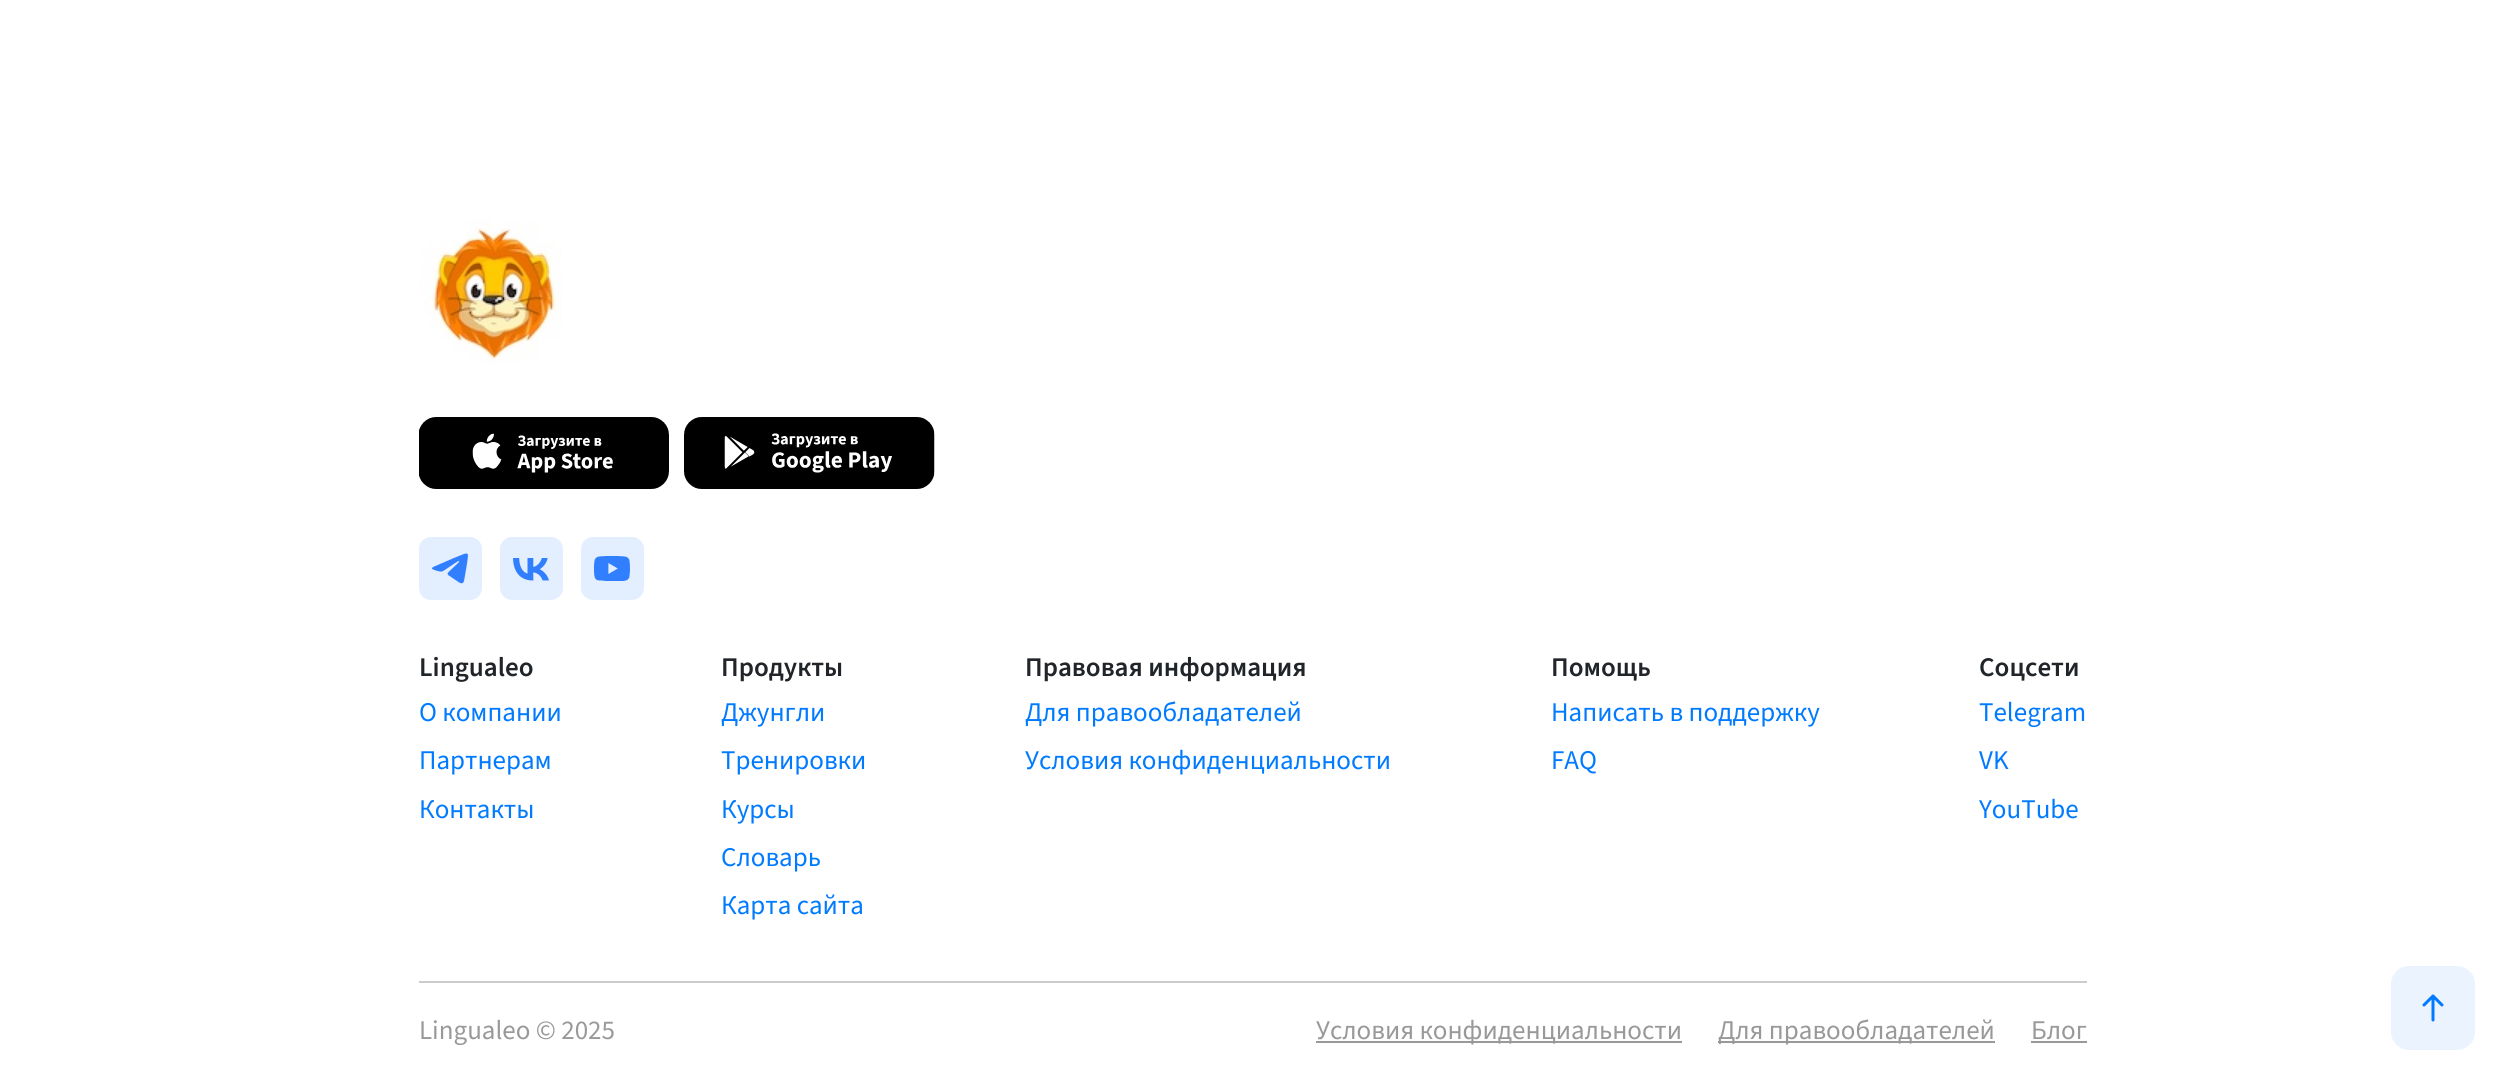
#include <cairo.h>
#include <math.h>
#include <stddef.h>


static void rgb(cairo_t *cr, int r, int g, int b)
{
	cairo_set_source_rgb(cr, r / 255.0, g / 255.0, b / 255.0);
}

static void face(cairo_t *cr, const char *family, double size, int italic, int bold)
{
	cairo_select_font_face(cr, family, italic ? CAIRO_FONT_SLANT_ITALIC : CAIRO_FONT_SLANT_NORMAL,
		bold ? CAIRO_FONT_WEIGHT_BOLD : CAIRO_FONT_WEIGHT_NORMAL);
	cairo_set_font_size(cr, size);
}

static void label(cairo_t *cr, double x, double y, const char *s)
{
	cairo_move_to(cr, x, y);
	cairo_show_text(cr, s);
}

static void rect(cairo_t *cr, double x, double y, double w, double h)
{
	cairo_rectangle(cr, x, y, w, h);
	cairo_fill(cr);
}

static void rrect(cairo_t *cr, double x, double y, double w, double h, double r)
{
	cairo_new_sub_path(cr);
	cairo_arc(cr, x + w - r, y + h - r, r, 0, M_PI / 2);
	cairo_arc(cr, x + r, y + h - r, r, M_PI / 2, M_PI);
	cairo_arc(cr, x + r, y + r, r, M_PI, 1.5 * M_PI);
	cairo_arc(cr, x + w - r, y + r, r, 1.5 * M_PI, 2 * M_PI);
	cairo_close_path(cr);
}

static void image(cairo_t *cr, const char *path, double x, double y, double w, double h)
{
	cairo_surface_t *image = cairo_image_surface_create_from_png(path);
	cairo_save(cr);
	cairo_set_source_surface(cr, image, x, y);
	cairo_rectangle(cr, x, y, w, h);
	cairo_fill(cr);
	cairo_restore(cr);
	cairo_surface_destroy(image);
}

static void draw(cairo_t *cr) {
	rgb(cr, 255, 255, 255);
	cairo_paint(cr);
	image(cr, "image0.png", 419, 219, 143, 144);
	image(cr, "image1.png", 419, 417, 250, 72);
	image(cr, "image2.png", 684, 417, 251, 72);
	rgb(cr, 227, 239, 254);
	rrect(cr, 419, 537, 63, 63, 12);
	cairo_fill(cr);
	image(cr, "image3.png", 432, 553, 36, 31);
	rrect(cr, 500, 537, 63, 63, 12);
	cairo_fill(cr);
	image(cr, "image4.png", 513, 558, 36, 23);
	rrect(cr, 581, 537, 63, 63, 12);
	cairo_fill(cr);
	image(cr, "image5.png", 594, 556, 36, 25);
	face(cr, "Source Sans 3 SemiBold", 27, 0, 0);
	rgb(cr, 33, 37, 41);
	label(cr, 419, 676, "Lingualeo");
	face(cr, "Source Sans 3", 27, 0, 0);
	rgb(cr, 0, 122, 255);
	label(cr, 419, 721, "О компании");
	label(cr, 419, 769, "Партнерам");
	label(cr, 419, 818, "Контакты");
	face(cr, "Source Sans 3 SemiBold", 27, 0, 0);
	rgb(cr, 33, 37, 41);
	label(cr, 721, 676, "Продукты");
	face(cr, "Source Sans 3", 27, 0, 0);
	rgb(cr, 0, 122, 255);
	label(cr, 721, 721, "Джунгли");
	label(cr, 721, 769, "Тренировки");
	label(cr, 721, 818, "Курсы");
	label(cr, 721, 866, "Словарь");
	label(cr, 721, 914, "Карта сайта");
	face(cr, "Source Sans 3 SemiBold", 27, 0, 0);
	rgb(cr, 33, 37, 41);
	label(cr, 1025, 676, "Правовая информация");
	face(cr, "Source Sans 3", 27, 0, 0);
	rgb(cr, 0, 122, 255);
	label(cr, 1025, 721, "Для правообладателей");
	label(cr, 1025, 769, "Условия конфиденциальности");
	face(cr, "Source Sans 3 SemiBold", 27, 0, 0);
	rgb(cr, 33, 37, 41);
	label(cr, 1551, 676, "Помощь");
	face(cr, "Source Sans 3", 27, 0, 0);
	rgb(cr, 0, 122, 255);
	label(cr, 1551, 721, "Написать в поддержку");
	label(cr, 1551, 769, "FAQ");
	face(cr, "Source Sans 3 SemiBold", 27, 0, 0);
	rgb(cr, 33, 37, 41);
	label(cr, 1979, 676, "Соцсети");
	face(cr, "Source Sans 3", 27, 0, 0);
	rgb(cr, 0, 122, 255);
	label(cr, 1979, 721, "Telegram");
	label(cr, 1979, 769, "VK");
	label(cr, 1979, 818, "YouTube");
	rgb(cr, 204, 204, 204);
	rect(cr, 419, 981, 1668, 2);
	rgb(cr, 153, 153, 153);
	label(cr, 419, 1039, "Lingualeo © 2025");
	rect(cr, 1316, 1041, 366, 2);
	label(cr, 1316, 1039, "Условия конфиденциальности");
	rect(cr, 1718, 1041, 277, 2);
	label(cr, 1718, 1039, "Для правообладателей");
	label(cr, 2031, 1039, "Блог");
	rect(cr, 2031, 1041, 56, 2);
	rgb(cr, 235, 243, 255);
	rrect(cr, 2391, 966, 84, 84, 18);
	cairo_fill(cr);
	cairo_new_path(cr);
	cairo_move_to(cr, 2433, 1020);
	cairo_line_to(cr, 2433, 996);
	cairo_move_to(cr, 2424, 1005);
	cairo_line_to(cr, 2433, 996);
	cairo_line_to(cr, 2442, 1005);
	rgb(cr, 0, 122, 255);
	cairo_set_line_width(cr, 3);
	cairo_set_line_cap(cr, CAIRO_LINE_CAP_ROUND);
	cairo_set_line_join(cr, CAIRO_LINE_JOIN_ROUND);
	cairo_stroke(cr);
}

int main(void) {
	cairo_surface_t *surface = cairo_image_surface_create(CAIRO_FORMAT_RGB24, 2505, 1079);
	cairo_t *cr = cairo_create(surface);
	cairo_font_options_t *options = cairo_font_options_create();
	cairo_font_options_set_hint_metrics(options, CAIRO_HINT_METRICS_OFF);
	cairo_font_options_set_hint_style(options, CAIRO_HINT_STYLE_NONE);
	cairo_set_font_options(cr, options);
	cairo_set_miter_limit(cr, 4);
	draw(cr);
	cairo_surface_write_to_png(surface, "render.png");
	cairo_font_options_destroy(options);
	cairo_destroy(cr);
	cairo_surface_destroy(surface);
	return 0;
}
